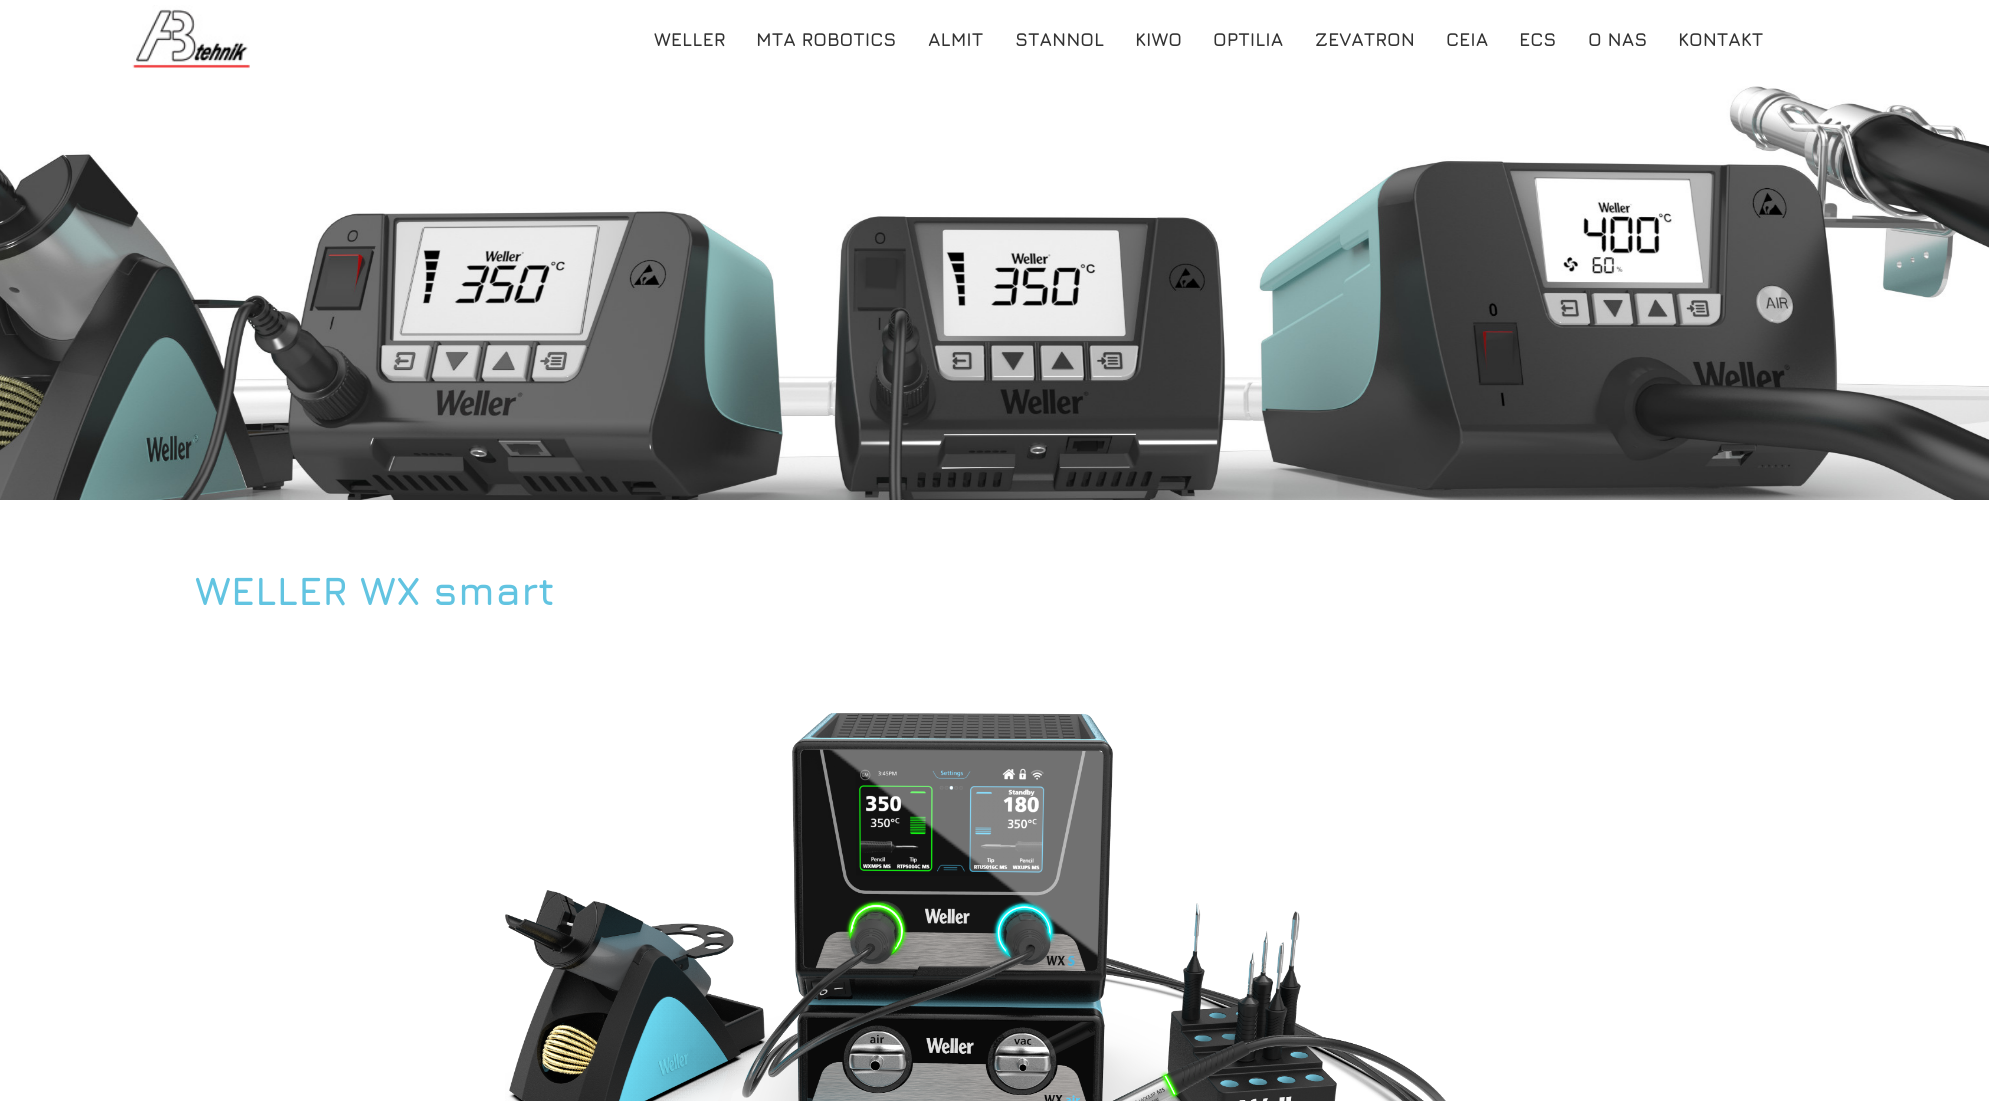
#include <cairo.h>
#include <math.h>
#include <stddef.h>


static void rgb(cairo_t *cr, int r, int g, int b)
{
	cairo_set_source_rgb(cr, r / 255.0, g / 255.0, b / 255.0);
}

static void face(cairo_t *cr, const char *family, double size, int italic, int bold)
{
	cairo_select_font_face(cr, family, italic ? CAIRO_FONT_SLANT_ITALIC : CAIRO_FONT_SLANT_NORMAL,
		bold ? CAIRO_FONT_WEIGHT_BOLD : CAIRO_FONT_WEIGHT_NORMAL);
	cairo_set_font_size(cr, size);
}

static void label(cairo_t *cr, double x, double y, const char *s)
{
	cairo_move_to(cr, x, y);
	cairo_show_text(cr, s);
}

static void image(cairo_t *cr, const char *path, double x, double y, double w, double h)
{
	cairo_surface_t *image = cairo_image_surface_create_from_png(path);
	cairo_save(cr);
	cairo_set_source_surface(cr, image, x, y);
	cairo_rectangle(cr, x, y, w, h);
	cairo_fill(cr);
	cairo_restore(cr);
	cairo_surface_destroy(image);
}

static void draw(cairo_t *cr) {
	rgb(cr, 255, 255, 255);
	cairo_paint(cr);
	image(cr, "image0.png", 132, 5, 118, 64);
	face(cr, "Jura", 18.75, 0, 1);
	rgb(cr, 51, 51, 51);
	label(cr, 654, 46, "WELLER");
	label(cr, 756, 46, "MTA ROBOTICS");
	label(cr, 928, 46, "ALMIT");
	label(cr, 1015, 46, "STANNOL");
	label(cr, 1135, 46, "KIWO");
	label(cr, 1213, 46, "OPTILIA");
	label(cr, 1315, 46, "ZEVATRON");
	label(cr, 1446, 46, "CEIA");
	label(cr, 1519, 46, "ECS");
	label(cr, 1588, 46, "O NAS");
	label(cr, 1678, 46, "KONTAKT");
	image(cr, "image1.png", 0, 86, 1989, 414);
	face(cr, "Jura", 40, 0, 1);
	rgb(cr, 98, 196, 225);
	label(cr, 195, 605, "WELLER WX smart");
	image(cr, "image2.png", 505, 713, 941, 388);
}

int main(void) {
	cairo_surface_t *surface = cairo_image_surface_create(CAIRO_FORMAT_RGB24, 1989, 1101);
	cairo_t *cr = cairo_create(surface);
	cairo_font_options_t *options = cairo_font_options_create();
	cairo_font_options_set_hint_metrics(options, CAIRO_HINT_METRICS_OFF);
	cairo_font_options_set_hint_style(options, CAIRO_HINT_STYLE_NONE);
	cairo_set_font_options(cr, options);
	cairo_set_miter_limit(cr, 4);
	draw(cr);
	cairo_surface_write_to_png(surface, "render.png");
	cairo_font_options_destroy(options);
	cairo_destroy(cr);
	cairo_surface_destroy(surface);
	return 0;
}
